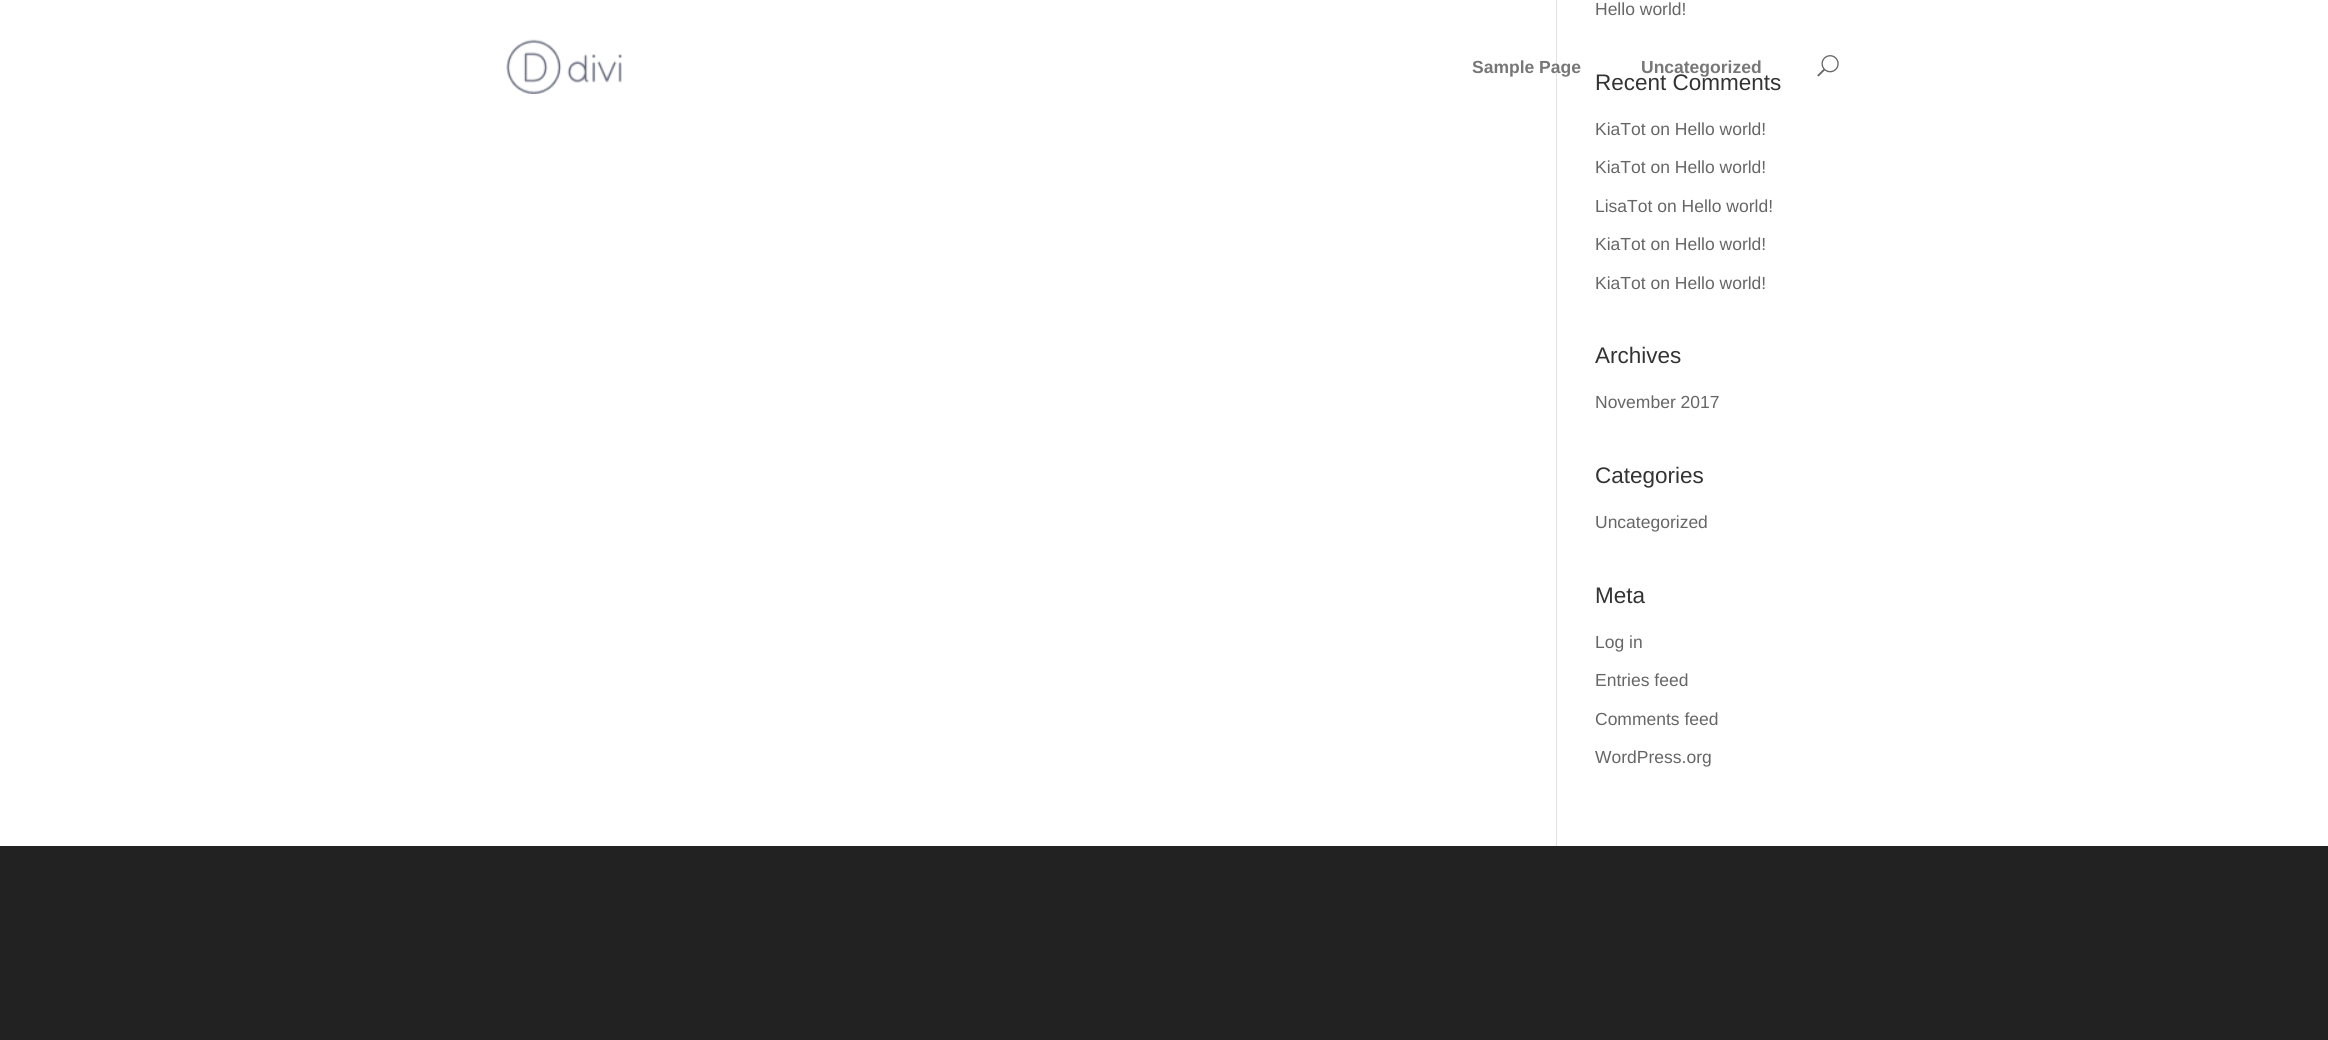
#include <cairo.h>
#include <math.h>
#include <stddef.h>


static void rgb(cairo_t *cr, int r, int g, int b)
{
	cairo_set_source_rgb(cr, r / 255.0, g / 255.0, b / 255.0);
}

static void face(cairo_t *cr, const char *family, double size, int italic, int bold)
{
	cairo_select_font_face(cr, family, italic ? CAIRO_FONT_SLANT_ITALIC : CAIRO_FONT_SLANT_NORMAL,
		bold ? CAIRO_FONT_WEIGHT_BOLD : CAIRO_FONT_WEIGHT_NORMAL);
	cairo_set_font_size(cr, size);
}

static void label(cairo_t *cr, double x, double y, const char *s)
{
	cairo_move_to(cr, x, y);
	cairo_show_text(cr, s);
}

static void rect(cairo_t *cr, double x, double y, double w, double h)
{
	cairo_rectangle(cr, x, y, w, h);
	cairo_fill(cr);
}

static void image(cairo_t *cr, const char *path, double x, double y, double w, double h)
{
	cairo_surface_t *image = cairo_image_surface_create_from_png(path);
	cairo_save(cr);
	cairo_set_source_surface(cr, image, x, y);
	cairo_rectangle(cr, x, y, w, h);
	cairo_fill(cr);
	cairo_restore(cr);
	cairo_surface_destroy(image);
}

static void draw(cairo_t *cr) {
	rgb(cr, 255, 255, 255);
	cairo_paint(cr);
	rgb(cr, 226, 226, 226);
	rect(cr, 1556, 0, 1, 846);
	face(cr, "Liberation Sans", 17.5, 0, 0);
	rgb(cr, 102, 102, 102);
	label(cr, 1595, 15, "Hello world!");
	face(cr, "Liberation Sans", 22.5, 0, 0);
	rgb(cr, 51, 51, 51);
	label(cr, 1595, 90, "Recent Comments");
	face(cr, "Liberation Sans", 17.5, 0, 0);
	rgb(cr, 102, 102, 102);
	label(cr, 1595, 135, "KiaTot on Hello world!");
	label(cr, 1595, 173, "KiaTot on Hello world!");
	label(cr, 1595, 212, "LisaTot on Hello world!");
	label(cr, 1595, 250, "KiaTot on Hello world!");
	label(cr, 1595, 289, "KiaTot on Hello world!");
	face(cr, "Liberation Sans", 22.5, 0, 0);
	rgb(cr, 51, 51, 51);
	label(cr, 1595, 363, "Archives");
	face(cr, "Liberation Sans", 17.5, 0, 0);
	rgb(cr, 102, 102, 102);
	label(cr, 1595, 408, "November 2017");
	face(cr, "Liberation Sans", 22.5, 0, 0);
	rgb(cr, 51, 51, 51);
	label(cr, 1595, 483, "Categories");
	face(cr, "Liberation Sans", 17.5, 0, 0);
	rgb(cr, 102, 102, 102);
	label(cr, 1595, 528, "Uncategorized");
	face(cr, "Liberation Sans", 22.5, 0, 0);
	rgb(cr, 51, 51, 51);
	label(cr, 1595, 603, "Meta");
	face(cr, "Liberation Sans", 17.5, 0, 0);
	rgb(cr, 102, 102, 102);
	label(cr, 1595, 648, "Log in");
	label(cr, 1595, 686, "Entries feed");
	label(cr, 1595, 725, "Comments feed");
	label(cr, 1595, 763, "WordPress.org");
	rgb(cr, 34, 34, 34);
	rect(cr, 0, 846, 2328, 194);
	image(cr, "image0.png", 506, 39, 117, 55);
	face(cr, "Liberation Sans", 17.5, 0, 1);
	rgb(cr, 119, 119, 119);
	label(cr, 1472, 73, "Sample Page");
	label(cr, 1641, 73, "Uncategorized");
	image(cr, "image1.png", 1817, 55, 22, 22);
}

int main(void) {
	cairo_surface_t *surface = cairo_image_surface_create(CAIRO_FORMAT_RGB24, 2328, 1040);
	cairo_t *cr = cairo_create(surface);
	cairo_font_options_t *options = cairo_font_options_create();
	cairo_font_options_set_hint_metrics(options, CAIRO_HINT_METRICS_OFF);
	cairo_font_options_set_hint_style(options, CAIRO_HINT_STYLE_NONE);
	cairo_set_font_options(cr, options);
	cairo_set_miter_limit(cr, 4);
	draw(cr);
	cairo_surface_write_to_png(surface, "render.png");
	cairo_font_options_destroy(options);
	cairo_destroy(cr);
	cairo_surface_destroy(surface);
	return 0;
}
